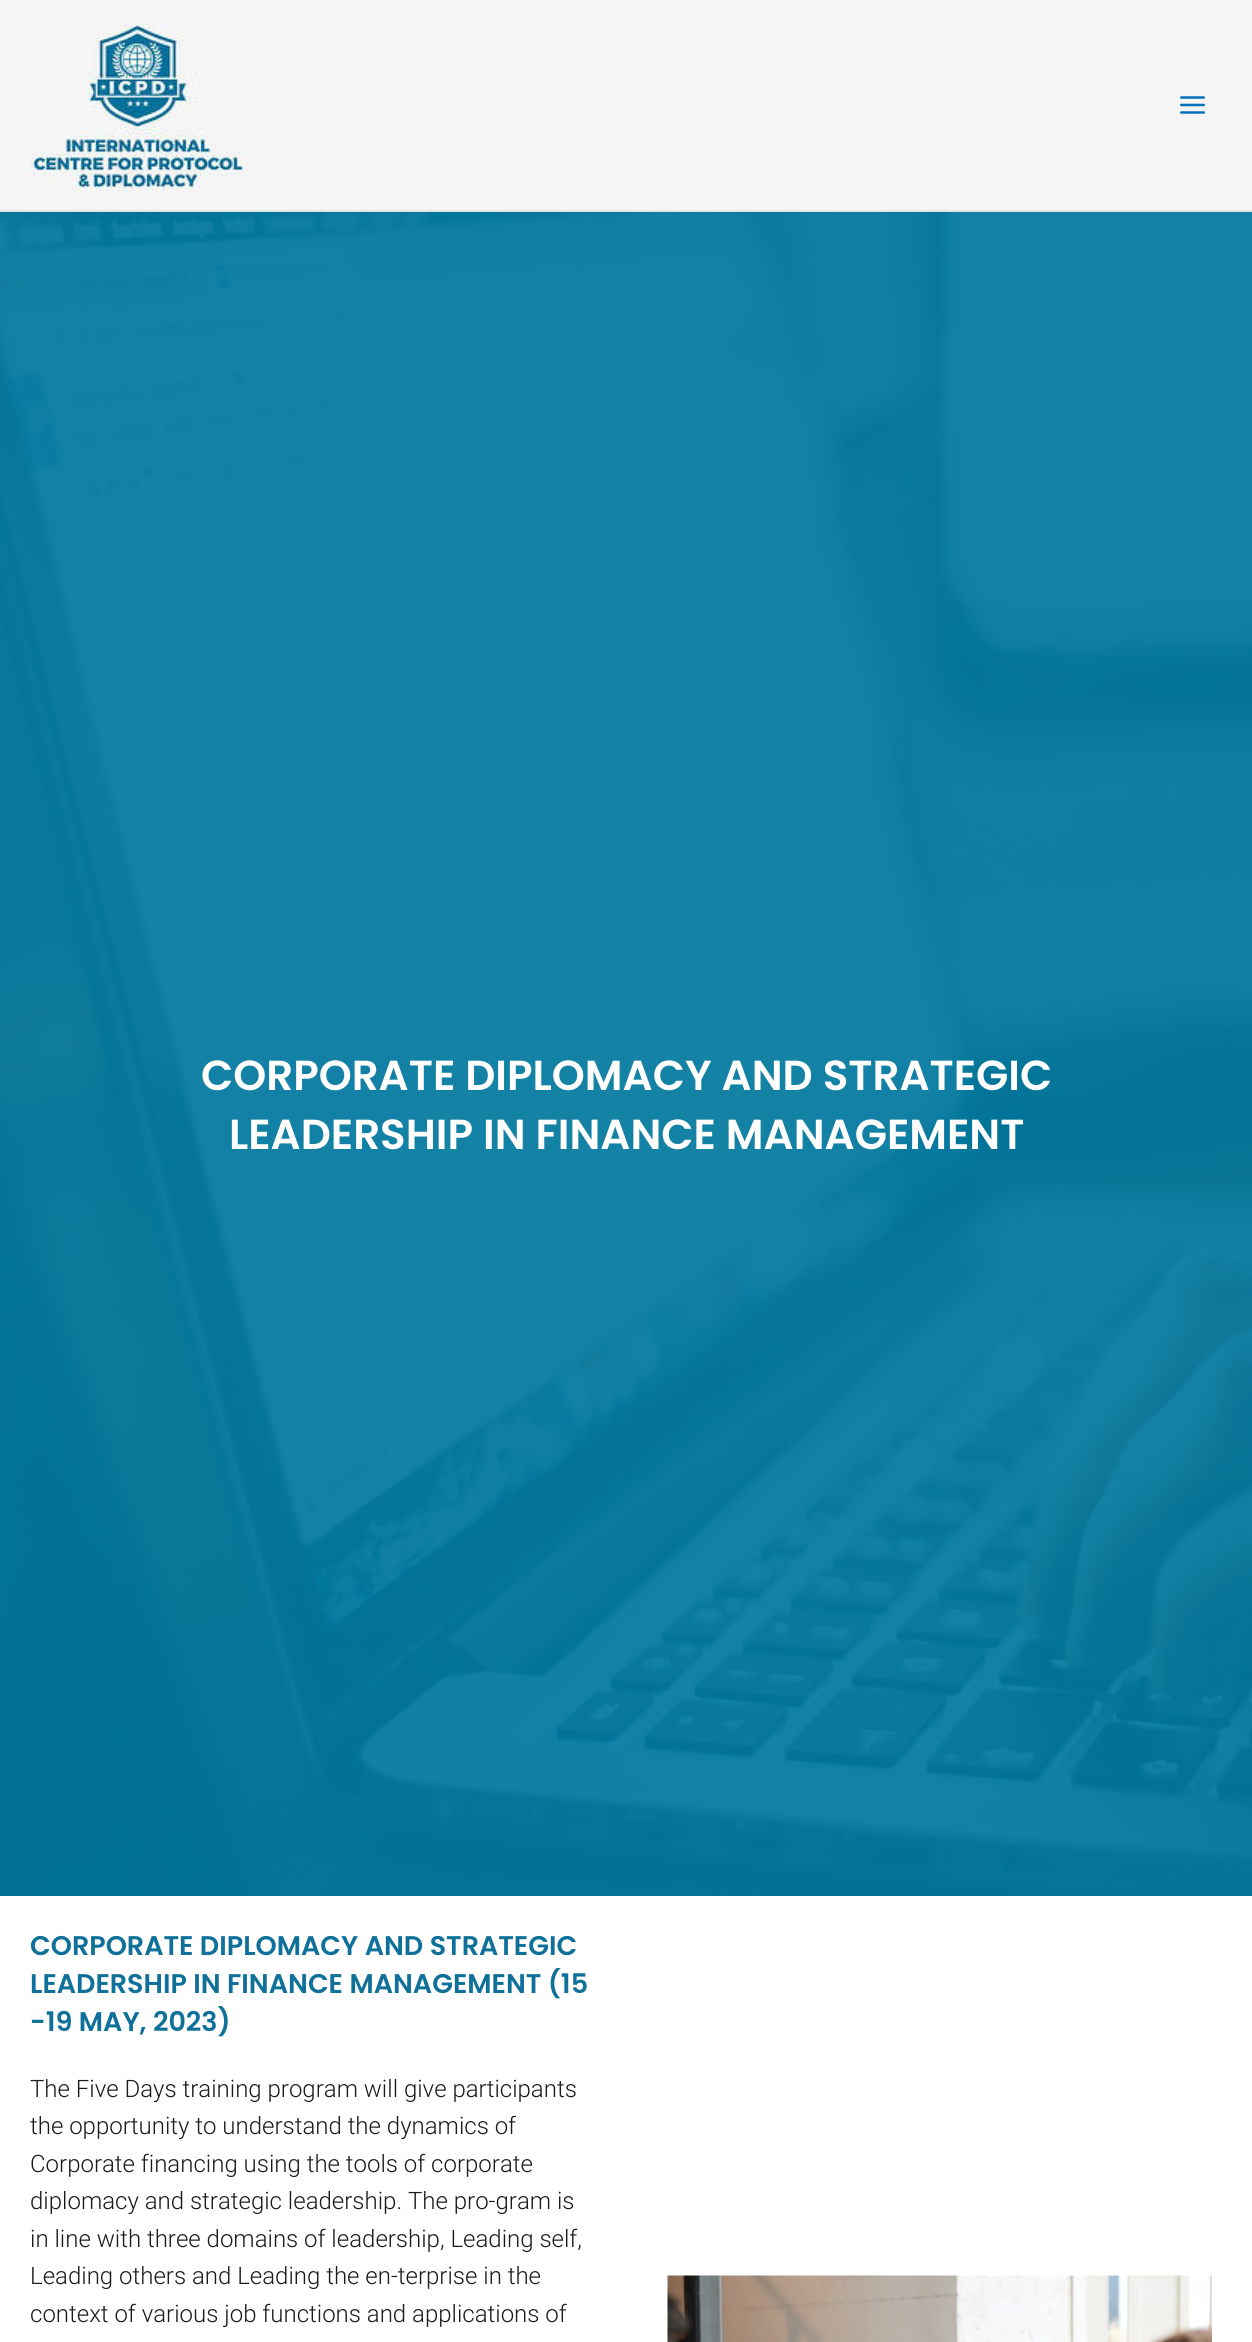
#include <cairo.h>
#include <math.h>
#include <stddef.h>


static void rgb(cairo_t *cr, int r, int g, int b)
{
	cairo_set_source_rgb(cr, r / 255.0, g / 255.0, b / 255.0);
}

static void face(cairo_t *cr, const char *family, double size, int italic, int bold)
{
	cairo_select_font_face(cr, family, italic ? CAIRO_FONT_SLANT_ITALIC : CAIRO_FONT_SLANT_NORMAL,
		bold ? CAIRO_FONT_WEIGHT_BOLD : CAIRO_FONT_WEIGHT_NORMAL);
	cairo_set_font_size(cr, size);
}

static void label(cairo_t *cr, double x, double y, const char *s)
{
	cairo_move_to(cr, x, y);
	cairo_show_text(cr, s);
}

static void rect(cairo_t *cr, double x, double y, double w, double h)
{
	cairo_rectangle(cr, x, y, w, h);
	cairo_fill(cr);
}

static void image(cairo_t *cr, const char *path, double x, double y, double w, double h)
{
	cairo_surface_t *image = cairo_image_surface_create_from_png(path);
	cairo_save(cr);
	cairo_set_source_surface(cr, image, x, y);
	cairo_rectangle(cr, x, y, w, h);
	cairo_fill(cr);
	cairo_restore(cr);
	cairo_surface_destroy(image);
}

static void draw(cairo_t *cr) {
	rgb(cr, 255, 255, 255);
	cairo_paint(cr);
	rgb(cr, 245, 245, 245);
	rect(cr, 0, 0, 1252, 210);
	rgb(cr, 229, 229, 229);
	rect(cr, 0, 210, 1252, 2);
	image(cr, "image0.png", 30, 21, 216, 170);
	image(cr, "image1.png", 1180, 96, 25, 18);
	image(cr, "image2.png", 0, 212, 1252, 1684);
	face(cr, "Poppins SemiBold", 42, 0, 0);
	rgb(cr, 255, 255, 255);
	label(cr, 201, 1090, "CORPORATE DIPLOMACY AND STRATEGIC");
	label(cr, 229, 1149, "LEADERSHIP IN FINANCE MANAGEMENT");
	face(cr, "Poppins SemiBold", 27, 0, 0);
	rgb(cr, 15, 112, 154);
	label(cr, 30, 1955, "CORPORATE DIPLOMACY AND STRATEGIC");
	label(cr, 30, 1993, "LEADERSHIP IN FINANCE MANAGEMENT (15");
	label(cr, 30, 2031, "-19 MAY, 2023)");
	face(cr, "Roboto Light", 24, 0, 0);
	rgb(cr, 27, 27, 27);
	label(cr, 30, 2097, "The Five Days training program will give participants");
	label(cr, 30, 2134, "the opportunity to understand the dynamics of");
	label(cr, 30, 2172, "Corporate financing using the tools of corporate");
	label(cr, 30, 2209, "diplomacy and strategic leadership. The pro-gram is");
	label(cr, 30, 2247, "in line with three domains of leadership, Leading self,");
	label(cr, 30, 2284, "Leading others and Leading the en-terprise in the");
	label(cr, 30, 2322, "context of various job functions and applications of");
	image(cr, "image3.png", 667, 2275, 545, 67);
}

int main(void) {
	cairo_surface_t *surface = cairo_image_surface_create(CAIRO_FORMAT_RGB24, 1252, 2342);
	cairo_t *cr = cairo_create(surface);
	cairo_font_options_t *options = cairo_font_options_create();
	cairo_font_options_set_hint_metrics(options, CAIRO_HINT_METRICS_OFF);
	cairo_font_options_set_hint_style(options, CAIRO_HINT_STYLE_NONE);
	cairo_set_font_options(cr, options);
	cairo_set_miter_limit(cr, 4);
	draw(cr);
	cairo_surface_write_to_png(surface, "render.png");
	cairo_font_options_destroy(options);
	cairo_destroy(cr);
	cairo_surface_destroy(surface);
	return 0;
}
